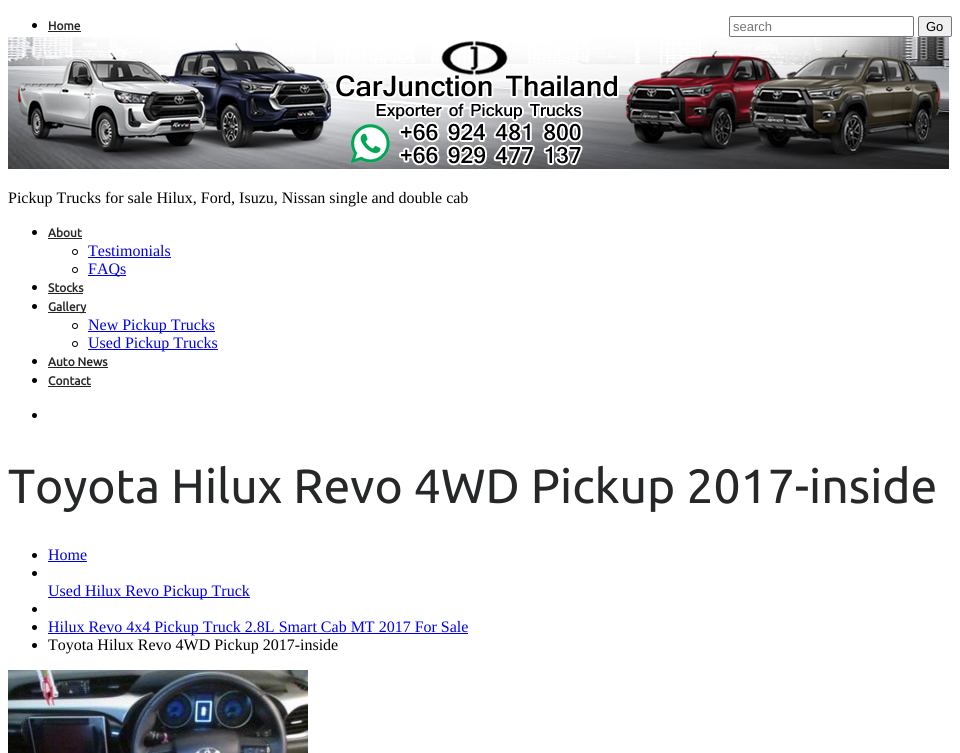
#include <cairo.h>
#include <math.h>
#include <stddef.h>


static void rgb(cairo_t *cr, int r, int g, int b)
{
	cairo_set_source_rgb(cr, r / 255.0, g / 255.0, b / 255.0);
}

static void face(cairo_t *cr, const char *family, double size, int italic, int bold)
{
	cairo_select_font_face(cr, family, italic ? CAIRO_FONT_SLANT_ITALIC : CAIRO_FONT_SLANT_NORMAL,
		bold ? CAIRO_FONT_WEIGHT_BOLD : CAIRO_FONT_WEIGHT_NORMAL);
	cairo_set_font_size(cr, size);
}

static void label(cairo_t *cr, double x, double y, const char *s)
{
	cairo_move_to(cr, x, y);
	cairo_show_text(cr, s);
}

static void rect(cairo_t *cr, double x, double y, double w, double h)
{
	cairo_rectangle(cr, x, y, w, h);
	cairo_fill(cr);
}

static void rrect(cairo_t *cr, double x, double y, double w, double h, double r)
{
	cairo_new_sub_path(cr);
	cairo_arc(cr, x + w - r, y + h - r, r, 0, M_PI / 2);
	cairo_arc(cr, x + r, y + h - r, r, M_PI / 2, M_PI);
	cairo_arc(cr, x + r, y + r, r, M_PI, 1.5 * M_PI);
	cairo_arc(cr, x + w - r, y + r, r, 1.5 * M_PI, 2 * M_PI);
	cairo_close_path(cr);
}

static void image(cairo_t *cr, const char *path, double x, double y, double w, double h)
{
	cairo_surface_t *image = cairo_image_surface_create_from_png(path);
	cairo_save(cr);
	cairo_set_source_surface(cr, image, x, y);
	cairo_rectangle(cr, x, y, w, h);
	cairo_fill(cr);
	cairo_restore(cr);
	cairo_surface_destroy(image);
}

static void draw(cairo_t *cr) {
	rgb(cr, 255, 255, 255);
	cairo_paint(cr);
	rgb(cr, 0, 0, 0);
	cairo_arc(cr, 34.5, 25.5, 2.5, 0, 2 * M_PI);
	cairo_fill(cr);
	face(cr, "Ubuntu", 12, 0, 1);
	rgb(cr, 38, 39, 40);
	label(cr, 48, 30, "Home");
	rect(cr, 48, 31, 33, 1);
	rgb(cr, 0, 0, 0);
	cairo_new_path(cr);
	cairo_arc(cr, 34.5, 232.5, 2.5, 0, 2 * M_PI);
	cairo_fill(cr);
	rgb(cr, 38, 39, 40);
	label(cr, 48, 237, "About");
	rect(cr, 48, 238, 34, 1);
	cairo_new_path(cr);
	cairo_arc(cr, 75, 252, 2.5, 0, 2 * M_PI);
	rgb(cr, 0, 0, 0);
	cairo_set_line_width(cr, 1);
	cairo_stroke(cr);
	face(cr, "Liberation Serif", 16, 0, 0);
	rgb(cr, 0, 0, 238);
	label(cr, 88, 256, "Testimonials");
	rect(cr, 88, 257, 83, 1);
	cairo_new_path(cr);
	cairo_arc(cr, 75, 270, 2.5, 0, 2 * M_PI);
	rgb(cr, 0, 0, 0);
	cairo_stroke(cr);
	rgb(cr, 0, 0, 238);
	rect(cr, 88, 275, 38, 1);
	label(cr, 88, 274, "FAQs");
	rgb(cr, 0, 0, 0);
	cairo_new_path(cr);
	cairo_arc(cr, 34.5, 287.5, 2.5, 0, 2 * M_PI);
	cairo_fill(cr);
	face(cr, "Ubuntu", 12, 0, 1);
	rgb(cr, 38, 39, 40);
	label(cr, 48, 292, "Stocks");
	rect(cr, 48, 293, 35, 1);
	rgb(cr, 0, 0, 0);
	cairo_new_path(cr);
	cairo_arc(cr, 34.5, 306.5, 2.5, 0, 2 * M_PI);
	cairo_fill(cr);
	rgb(cr, 38, 39, 40);
	rect(cr, 48, 312, 38, 1);
	label(cr, 48, 311, "Gallery");
	cairo_new_path(cr);
	cairo_arc(cr, 75, 326, 2.5, 0, 2 * M_PI);
	rgb(cr, 0, 0, 0);
	cairo_stroke(cr);
	rgb(cr, 0, 0, 238);
	rect(cr, 88, 331, 127, 1);
	face(cr, "Liberation Serif", 16, 0, 0);
	label(cr, 88, 330, "New Pickup Trucks");
	cairo_new_path(cr);
	cairo_arc(cr, 75, 344, 2.5, 0, 2 * M_PI);
	rgb(cr, 0, 0, 0);
	cairo_stroke(cr);
	rgb(cr, 0, 0, 238);
	rect(cr, 88, 349, 130, 1);
	label(cr, 88, 348, "Used Pickup Trucks");
	rgb(cr, 0, 0, 0);
	cairo_new_path(cr);
	cairo_arc(cr, 34.5, 361.5, 2.5, 0, 2 * M_PI);
	cairo_fill(cr);
	face(cr, "Ubuntu", 12, 0, 1);
	rgb(cr, 38, 39, 40);
	label(cr, 48, 366, "Auto News");
	rect(cr, 48, 367, 60, 1);
	rgb(cr, 0, 0, 0);
	cairo_new_path(cr);
	cairo_arc(cr, 34.5, 380.5, 2.5, 0, 2 * M_PI);
	cairo_fill(cr);
	rgb(cr, 38, 39, 40);
	label(cr, 48, 385, "Contact");
	rect(cr, 48, 386, 43, 1);
	rgb(cr, 0, 0, 0);
	cairo_new_path(cr);
	cairo_arc(cr, 34.5, 415.5, 2.5, 0, 2 * M_PI);
	cairo_fill(cr);
	rrect(cr, 729.5, 16.5, 184, 20, 1.5);
	rgb(cr, 118, 118, 118);
	cairo_stroke(cr);
	face(cr, "Liberation Sans", 13, 0, 0);
	rgb(cr, 117, 117, 117);
	label(cr, 733, 31, "search");
	rgb(cr, 239, 239, 239);
	rrect(cr, 918.5, 16.5, 33, 20, 1.5);
	cairo_fill_preserve(cr);
	rgb(cr, 118, 118, 118);
	cairo_stroke(cr);
	rgb(cr, 0, 0, 0);
	label(cr, 926, 31, "Go");
	image(cr, "image0.png", 8, 37, 941, 132);
	face(cr, "Liberation Serif", 16, 0, 0);
	label(cr, 8, 203, "Pickup Trucks for sale Hilux, Ford, Isuzu, Nissan single and double cab");
	face(cr, "Ubuntu", 48, 0, 0);
	rgb(cr, 38, 39, 40);
	label(cr, 8, 503, "Toyota Hilux Revo 4WD Pickup 2017-inside");
	rgb(cr, 0, 0, 0);
	cairo_new_path(cr);
	cairo_arc(cr, 34.5, 555.5, 2.5, 0, 2 * M_PI);
	cairo_fill(cr);
	face(cr, "Liberation Serif", 16, 0, 0);
	rgb(cr, 0, 0, 238);
	label(cr, 48, 560, "Home");
	rect(cr, 48, 561, 39, 1);
	rgb(cr, 0, 0, 0);
	cairo_new_path(cr);
	cairo_arc(cr, 34.5, 573.5, 2.5, 0, 2 * M_PI);
	cairo_fill(cr);
	rgb(cr, 0, 0, 238);
	rect(cr, 48, 597, 202, 1);
	label(cr, 48, 596, "Used Hilux Revo Pickup Truck");
	rgb(cr, 0, 0, 0);
	cairo_new_path(cr);
	cairo_arc(cr, 34.5, 609.5, 2.5, 0, 2 * M_PI);
	cairo_fill(cr);
	cairo_arc(cr, 34.5, 627.5, 2.5, 0, 2 * M_PI);
	cairo_fill(cr);
	rgb(cr, 0, 0, 238);
	rect(cr, 48, 633, 420, 1);
	label(cr, 48, 632, "Hilux Revo 4x4 Pickup Truck 2.8L Smart Cab MT 2017 For Sale");
	rgb(cr, 0, 0, 0);
	cairo_new_path(cr);
	cairo_arc(cr, 34.5, 645.5, 2.5, 0, 2 * M_PI);
	cairo_fill(cr);
	label(cr, 48, 650, "Toyota Hilux Revo 4WD Pickup 2017-inside");
	image(cr, "image1.png", 8, 670, 300, 83);
}

int main(void) {
	cairo_surface_t *surface = cairo_image_surface_create(CAIRO_FORMAT_RGB24, 960, 753);
	cairo_t *cr = cairo_create(surface);
	cairo_font_options_t *options = cairo_font_options_create();
	cairo_font_options_set_hint_metrics(options, CAIRO_HINT_METRICS_OFF);
	cairo_font_options_set_hint_style(options, CAIRO_HINT_STYLE_NONE);
	cairo_set_font_options(cr, options);
	cairo_set_miter_limit(cr, 4);
	draw(cr);
	cairo_surface_write_to_png(surface, "render.png");
	cairo_font_options_destroy(options);
	cairo_destroy(cr);
	cairo_surface_destroy(surface);
	return 0;
}
